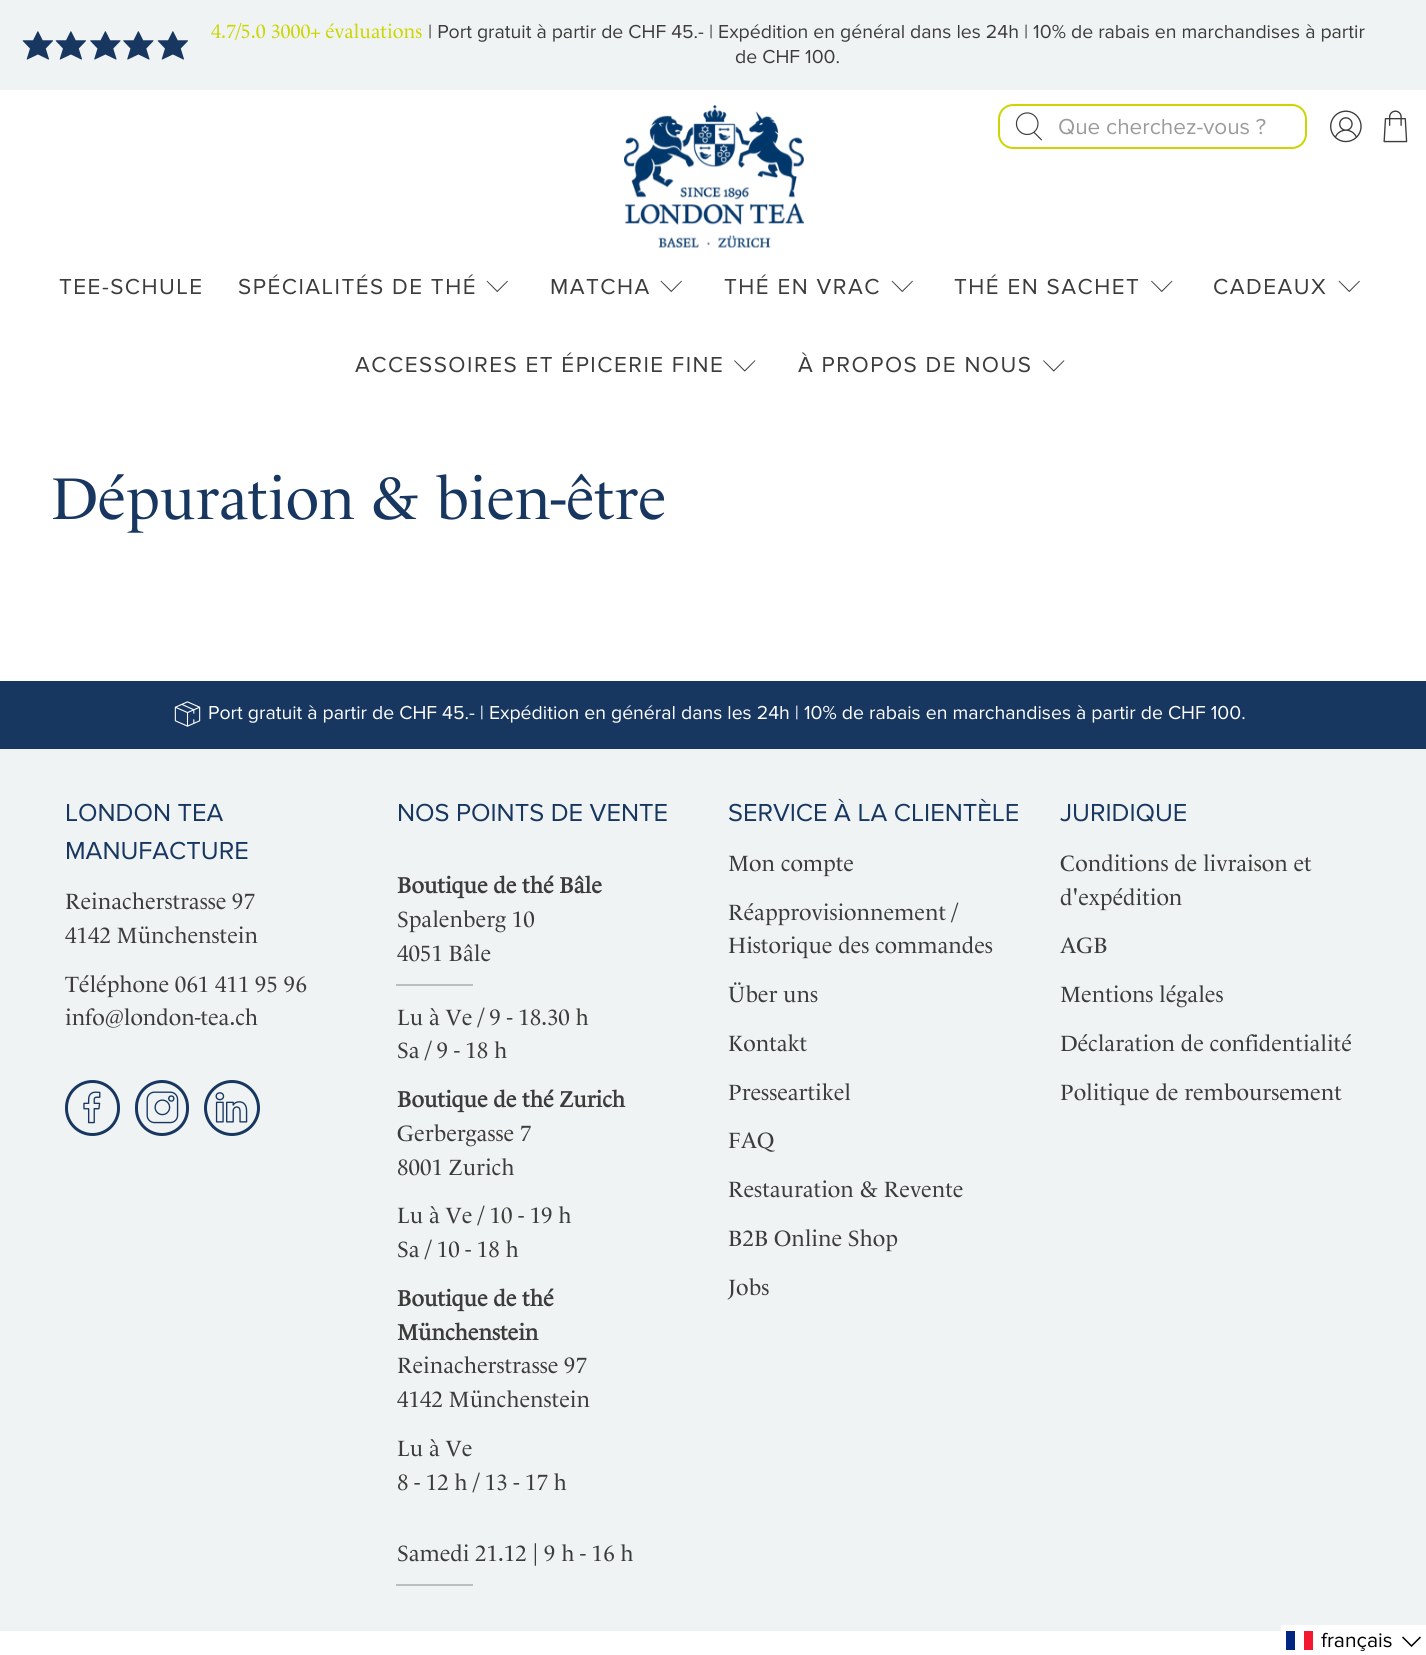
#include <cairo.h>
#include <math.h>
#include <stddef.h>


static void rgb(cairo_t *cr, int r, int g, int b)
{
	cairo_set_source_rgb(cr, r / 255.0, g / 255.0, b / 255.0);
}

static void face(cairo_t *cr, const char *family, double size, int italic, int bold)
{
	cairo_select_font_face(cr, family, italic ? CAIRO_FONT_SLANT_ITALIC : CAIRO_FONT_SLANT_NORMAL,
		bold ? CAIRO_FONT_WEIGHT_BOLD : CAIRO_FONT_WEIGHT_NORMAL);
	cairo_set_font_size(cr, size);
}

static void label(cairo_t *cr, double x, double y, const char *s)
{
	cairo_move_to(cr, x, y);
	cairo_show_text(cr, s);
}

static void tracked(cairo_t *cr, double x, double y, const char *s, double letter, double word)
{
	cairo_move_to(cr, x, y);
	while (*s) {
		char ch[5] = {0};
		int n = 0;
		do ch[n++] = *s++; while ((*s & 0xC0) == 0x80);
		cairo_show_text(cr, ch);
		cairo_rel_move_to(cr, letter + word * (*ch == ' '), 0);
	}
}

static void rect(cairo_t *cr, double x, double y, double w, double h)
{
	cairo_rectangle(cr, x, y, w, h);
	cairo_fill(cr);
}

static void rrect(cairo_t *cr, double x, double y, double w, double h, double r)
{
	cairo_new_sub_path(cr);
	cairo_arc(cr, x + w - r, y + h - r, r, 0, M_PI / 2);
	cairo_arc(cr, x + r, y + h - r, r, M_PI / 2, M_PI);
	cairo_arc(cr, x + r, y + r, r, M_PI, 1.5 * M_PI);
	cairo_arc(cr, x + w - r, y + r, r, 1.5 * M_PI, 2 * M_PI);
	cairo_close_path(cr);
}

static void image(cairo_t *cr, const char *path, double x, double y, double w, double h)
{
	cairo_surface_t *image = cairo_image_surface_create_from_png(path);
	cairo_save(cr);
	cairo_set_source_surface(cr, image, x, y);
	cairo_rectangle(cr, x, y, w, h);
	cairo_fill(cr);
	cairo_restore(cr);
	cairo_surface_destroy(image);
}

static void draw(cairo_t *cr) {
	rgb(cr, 255, 255, 255);
	cairo_paint(cr);
	rgb(cr, 240, 243, 243);
	rect(cr, 0, 0, 1426, 90);
	image(cr, "image0.png", 22, 31, 31, 29);
	image(cr, "image0.png", 55, 31, 31, 29);
	image(cr, "image1.png", 90, 31, 31, 29);
	image(cr, "image1.png", 123, 31, 31, 29);
	image(cr, "image0.png", 157, 31, 31, 29);
	face(cr, "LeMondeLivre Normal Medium", 19.5, 0, 0);
	rgb(cr, 203, 214, 0);
	label(cr, 211, 38, "4.7/5.0 3000+ évaluations");
	face(cr, "Proxima Nova", 19.5, 0, 0);
	rgb(cr, 60, 60, 60);
	label(cr, 428, 38, "| Port gratuit à partir de CHF 45.- | Expédition en général dans les 24h | 10% de rabais en marchandises à partir");
	label(cr, 735, 63, "de CHF 100.");
	rrect(cr, 999, 105, 307, 43, 14);
	rgb(cr, 203, 214, 0);
	cairo_stroke(cr);
	image(cr, "image2.png", 1015, 112, 27, 29);
	face(cr, "Proxima Nova", 22.5, 0, 0);
	rgb(cr, 155, 155, 155);
	label(cr, 1058, 134, "Que cherchez-vous ?");
	image(cr, "image3.png", 1330, 110, 32, 33);
	image(cr, "image4.png", 1383, 110, 25, 33);
	image(cr, "image5.png", 624, 105, 180, 143);
	rgb(cr, 60, 60, 60);
	tracked(cr, 59, 294, "TEE-SCHULE", 1.5, 0);
	tracked(cr, 238, 294, "SPÉCIALITÉS DE THÉ", 1.5, 0);
	image(cr, "image6.png", 486, 280, 22, 12);
	tracked(cr, 550, 294, "MATCHA", 1.5, 0);
	image(cr, "image6.png", 660, 280, 22, 12);
	tracked(cr, 724, 294, "THÉ EN VRAC", 1.5, 0);
	image(cr, "image6.png", 891, 280, 22, 12);
	tracked(cr, 954, 294, "THÉ EN SACHET", 1.5, 0);
	image(cr, "image7.png", 1151, 280, 22, 12);
	tracked(cr, 1213, 294, "CADEAUX", 1.5, 0);
	image(cr, "image6.png", 1338, 280, 22, 12);
	tracked(cr, 355, 372, "ACCESSOIRES ET ÉPICERIE FINE", 1.5, 0);
	image(cr, "image8.png", 734, 360, 22, 12);
	tracked(cr, 798, 372, "À PROPOS DE NOUS", 1.5, 0);
	image(cr, "image8.png", 1043, 360, 22, 12);
	face(cr, "LeMondeLivre Normal Medium", 60, 0, 0);
	rgb(cr, 23, 55, 97);
	label(cr, 51, 519, "Dépuration & bien-être");
	rect(cr, 0, 681, 1426, 68);
	image(cr, "image9.png", 174, 701, 27, 26);
	face(cr, "Proxima Nova", 19.5, 0, 0);
	rgb(cr, 255, 255, 255);
	label(cr, 208, 719, "Port gratuit à partir de CHF 45.- | Expédition en général dans les 24h | 10% de rabais en marchandises à partir de CHF 100.");
	rgb(cr, 240, 243, 243);
	rect(cr, 0, 749, 1426, 882);
	face(cr, "Proxima Nova", 25.5, 0, 0);
	rgb(cr, 23, 55, 97);
	label(cr, 65, 821, "LONDON TEA");
	label(cr, 65, 859, "MANUFACTURE");
	face(cr, "LeMondeLivre Normal Medium", 22.5, 0, 0);
	rgb(cr, 60, 60, 60);
	label(cr, 65, 909, "Reinacherstrasse 97");
	label(cr, 65, 943, "4142 Münchenstein");
	label(cr, 65, 992, "Téléphone 061 411 95 96");
	label(cr, 65, 1025, "info@london-tea.ch");
	rrect(cr, 66.5, 1081.5, 52, 53, 26);
	rgb(cr, 23, 55, 97);
	cairo_set_line_width(cr, 3);
	cairo_stroke(cr);
	image(cr, "image10.png", 83, 1091, 18, 33);
	rrect(cr, 136.5, 1081.5, 51, 53, 25.5);
	cairo_stroke(cr);
	image(cr, "image11.png", 146, 1091, 33, 33);
	cairo_arc(cr, 232, 1108, 26.5, 0, 2 * M_PI);
	cairo_stroke(cr);
	image(cr, "image12.png", 215, 1092, 33, 31);
	face(cr, "Proxima Nova", 25.5, 0, 0);
	label(cr, 397, 821, "NOS POINTS DE VENTE");
	face(cr, "LeMondeLivre Normal", 22.5, 0, 1);
	rgb(cr, 60, 60, 60);
	label(cr, 397, 893, "Boutique de thé Bâle");
	face(cr, "LeMondeLivre Normal Medium", 22.5, 0, 0);
	label(cr, 397, 927, "Spalenberg 10");
	label(cr, 397, 961, "4051 Bâle");
	rgb(cr, 188, 189, 189);
	rect(cr, 396, 984, 77, 2);
	rgb(cr, 60, 60, 60);
	label(cr, 397, 1025, "Lu à Ve / 9 - 18.30 h");
	label(cr, 397, 1058, "Sa / 9 - 18 h");
	face(cr, "LeMondeLivre Normal", 22.5, 0, 1);
	label(cr, 397, 1107, "Boutique de thé Zurich");
	face(cr, "LeMondeLivre Normal Medium", 22.5, 0, 0);
	label(cr, 397, 1141, "Gerbergasse 7");
	label(cr, 397, 1175, "8001 Zurich");
	label(cr, 397, 1223, "Lu à Ve / 10 - 19 h");
	label(cr, 397, 1257, "Sa / 10 - 18 h");
	face(cr, "LeMondeLivre Normal", 22.5, 0, 1);
	label(cr, 397, 1306, "Boutique de thé");
	label(cr, 397, 1340, "Münchenstein");
	face(cr, "LeMondeLivre Normal Medium", 22.5, 0, 0);
	label(cr, 397, 1373, "Reinacherstrasse 97");
	label(cr, 397, 1407, "4142 Münchenstein");
	label(cr, 397, 1456, "Lu à Ve");
	label(cr, 397, 1490, "8 - 12 h / 13 - 17 h");
	label(cr, 397, 1561, "Samedi 21.12 | 9 h - 16 h");
	rgb(cr, 188, 189, 189);
	rect(cr, 396, 1584, 77, 2);
	face(cr, "Proxima Nova", 25.5, 0, 0);
	rgb(cr, 23, 55, 97);
	label(cr, 728, 821, "SERVICE À LA CLIENTÈLE");
	face(cr, "LeMondeLivre Normal Medium", 22.5, 0, 0);
	rgb(cr, 60, 60, 60);
	label(cr, 728, 871, "Mon compte");
	label(cr, 728, 920, "Réapprovisionnement /");
	label(cr, 728, 953, "Historique des commandes");
	label(cr, 728, 1002, "Über uns");
	label(cr, 728, 1051, "Kontakt");
	label(cr, 728, 1100, "Presseartikel");
	label(cr, 728, 1148, "FAQ");
	label(cr, 728, 1197, "Restauration & Revente");
	label(cr, 728, 1246, "B2B Online Shop");
	label(cr, 728, 1295, "Jobs");
	face(cr, "Proxima Nova", 25.5, 0, 0);
	rgb(cr, 23, 55, 97);
	label(cr, 1060, 821, "JURIDIQUE");
	face(cr, "LeMondeLivre Normal Medium", 22.5, 0, 0);
	rgb(cr, 60, 60, 60);
	label(cr, 1060, 871, "Conditions de livraison et");
	label(cr, 1060, 905, "d'expédition");
	label(cr, 1060, 953, "AGB");
	label(cr, 1060, 1002, "Mentions légales");
	label(cr, 1060, 1051, "Déclaration de confidentialité");
	label(cr, 1060, 1100, "Politique de remboursement");
	rgb(cr, 255, 255, 255);
	rect(cr, 1281, 1625, 145, 6);
	rgb(cr, 0, 38, 127);
	rect(cr, 1286, 1631, 9, 19);
	rgb(cr, 243, 24, 48);
	rect(cr, 1304, 1631, 9, 19);
	face(cr, "Proxima Nova", 21, 0, 0);
	rgb(cr, 0, 0, 0);
	label(cr, 1321, 1647, "français");
	cairo_new_path(cr);
	cairo_move_to(cr, 1402.5, 1637);
	cairo_line_to(cr, 1411.5, 1646);
	cairo_line_to(cr, 1420.5, 1637);
	cairo_set_line_width(cr, 1.5);
	cairo_stroke(cr);
}

int main(void) {
	cairo_surface_t *surface = cairo_image_surface_create(CAIRO_FORMAT_RGB24, 1426, 1655);
	cairo_t *cr = cairo_create(surface);
	cairo_font_options_t *options = cairo_font_options_create();
	cairo_font_options_set_hint_metrics(options, CAIRO_HINT_METRICS_OFF);
	cairo_font_options_set_hint_style(options, CAIRO_HINT_STYLE_NONE);
	cairo_set_font_options(cr, options);
	cairo_set_miter_limit(cr, 4);
	draw(cr);
	cairo_surface_write_to_png(surface, "render.png");
	cairo_font_options_destroy(options);
	cairo_destroy(cr);
	cairo_surface_destroy(surface);
	return 0;
}
